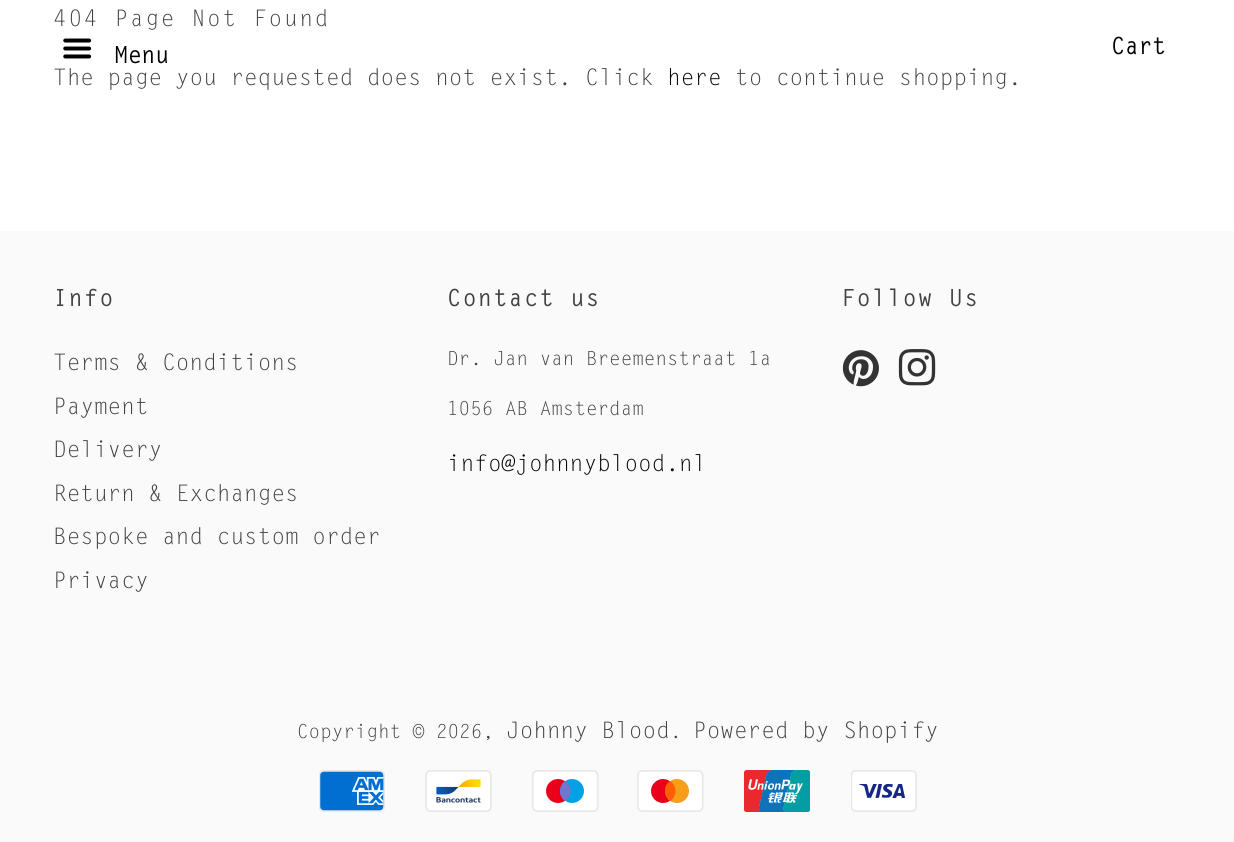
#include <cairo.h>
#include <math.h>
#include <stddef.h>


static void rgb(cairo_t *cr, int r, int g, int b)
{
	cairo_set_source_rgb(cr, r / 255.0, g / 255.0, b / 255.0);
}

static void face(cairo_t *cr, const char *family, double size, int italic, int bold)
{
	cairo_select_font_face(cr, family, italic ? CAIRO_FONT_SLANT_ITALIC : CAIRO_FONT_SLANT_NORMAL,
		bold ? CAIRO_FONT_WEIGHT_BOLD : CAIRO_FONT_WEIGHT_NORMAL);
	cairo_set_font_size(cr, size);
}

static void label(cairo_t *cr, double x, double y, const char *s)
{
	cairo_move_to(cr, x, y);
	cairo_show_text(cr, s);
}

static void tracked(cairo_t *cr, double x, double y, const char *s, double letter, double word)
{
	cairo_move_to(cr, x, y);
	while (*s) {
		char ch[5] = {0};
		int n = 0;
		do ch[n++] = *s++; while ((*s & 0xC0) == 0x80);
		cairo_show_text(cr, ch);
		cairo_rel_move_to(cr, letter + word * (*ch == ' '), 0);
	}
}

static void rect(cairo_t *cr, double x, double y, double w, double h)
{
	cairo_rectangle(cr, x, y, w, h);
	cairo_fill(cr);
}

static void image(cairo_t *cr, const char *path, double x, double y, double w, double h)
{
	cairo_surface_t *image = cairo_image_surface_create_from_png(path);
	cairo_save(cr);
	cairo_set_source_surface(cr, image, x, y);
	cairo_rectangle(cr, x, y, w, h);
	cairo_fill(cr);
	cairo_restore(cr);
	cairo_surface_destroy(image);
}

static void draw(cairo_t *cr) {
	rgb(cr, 255, 255, 255);
	cairo_paint(cr);
	face(cr, "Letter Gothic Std", 22.75, 0, 0);
	rgb(cr, 65, 65, 65);
	tracked(cr, 53, 26, "404 Page Not Found", 1.75, 0);
	label(cr, 53, 85, "The page you requested does not exist. Click");
	rgb(cr, 0, 0, 0);
	label(cr, 667, 85, "here");
	rgb(cr, 65, 65, 65);
	label(cr, 735, 85, "to continue shopping.");
	image(cr, "image0.png", 63, 38, 29, 21);
	face(cr, "Letter Gothic Std", 22.75, 0, 1);
	rgb(cr, 0, 0, 0);
	label(cr, 114, 63, "Menu");
	label(cr, 1111, 54, "Cart");
	rgb(cr, 250, 250, 250);
	rect(cr, 0, 231, 1234, 611);
	rgb(cr, 65, 65, 65);
	tracked(cr, 53, 306, "Info", 1.75, 0);
	face(cr, "Letter Gothic Std", 22.75, 0, 0);
	label(cr, 53, 370, "Terms & Conditions");
	label(cr, 53, 414, "Payment");
	label(cr, 53, 457, "Delivery");
	label(cr, 53, 501, "Return & Exchanges");
	label(cr, 53, 544, "Bespoke and custom order");
	label(cr, 53, 588, "Privacy");
	face(cr, "Letter Gothic Std", 22.75, 0, 1);
	tracked(cr, 447, 306, "Contact us", 1.75, 0);
	face(cr, "Letter Gothic Std", 19.3, 0, 0);
	label(cr, 447, 365, "Dr. Jan van Breemenstraat 1a");
	label(cr, 447, 415, "1056 AB Amsterdam");
	face(cr, "Letter Gothic Std", 22.75, 0, 0);
	rgb(cr, 0, 0, 0);
	label(cr, 447, 471, "info@johnnyblood.nl");
	face(cr, "Letter Gothic Std", 22.75, 0, 1);
	rgb(cr, 65, 65, 65);
	tracked(cr, 841, 306, "Follow Us", 1.75, 0);
	image(cr, "image1.png", 842, 350, 37, 37);
	image(cr, "image2.png", 898, 349, 38, 37);
	face(cr, "Letter Gothic Std", 19.3, 0, 0);
	label(cr, 297, 738, "Copyright © 2026,");
	face(cr, "Letter Gothic Std", 22.75, 0, 0);
	label(cr, 506, 738, "Johnny Blood");
	face(cr, "Letter Gothic Std", 19.3, 0, 0);
	label(cr, 670, 738, ".");
	face(cr, "Letter Gothic Std", 22.75, 0, 0);
	label(cr, 693, 738, "Powered by Shopify");
	image(cr, "image3.png", 319, 770, 66, 42);
	image(cr, "image4.png", 425, 770, 67, 42);
	image(cr, "image5.png", 532, 770, 67, 42);
	image(cr, "image6.png", 637, 770, 67, 42);
	image(cr, "image7.png", 744, 770, 66, 42);
	image(cr, "image8.png", 851, 770, 66, 42);
}

int main(void) {
	cairo_surface_t *surface = cairo_image_surface_create(CAIRO_FORMAT_RGB24, 1234, 842);
	cairo_t *cr = cairo_create(surface);
	cairo_font_options_t *options = cairo_font_options_create();
	cairo_font_options_set_hint_metrics(options, CAIRO_HINT_METRICS_OFF);
	cairo_font_options_set_hint_style(options, CAIRO_HINT_STYLE_NONE);
	cairo_set_font_options(cr, options);
	cairo_set_miter_limit(cr, 4);
	draw(cr);
	cairo_surface_write_to_png(surface, "render.png");
	cairo_font_options_destroy(options);
	cairo_destroy(cr);
	cairo_surface_destroy(surface);
	return 0;
}
